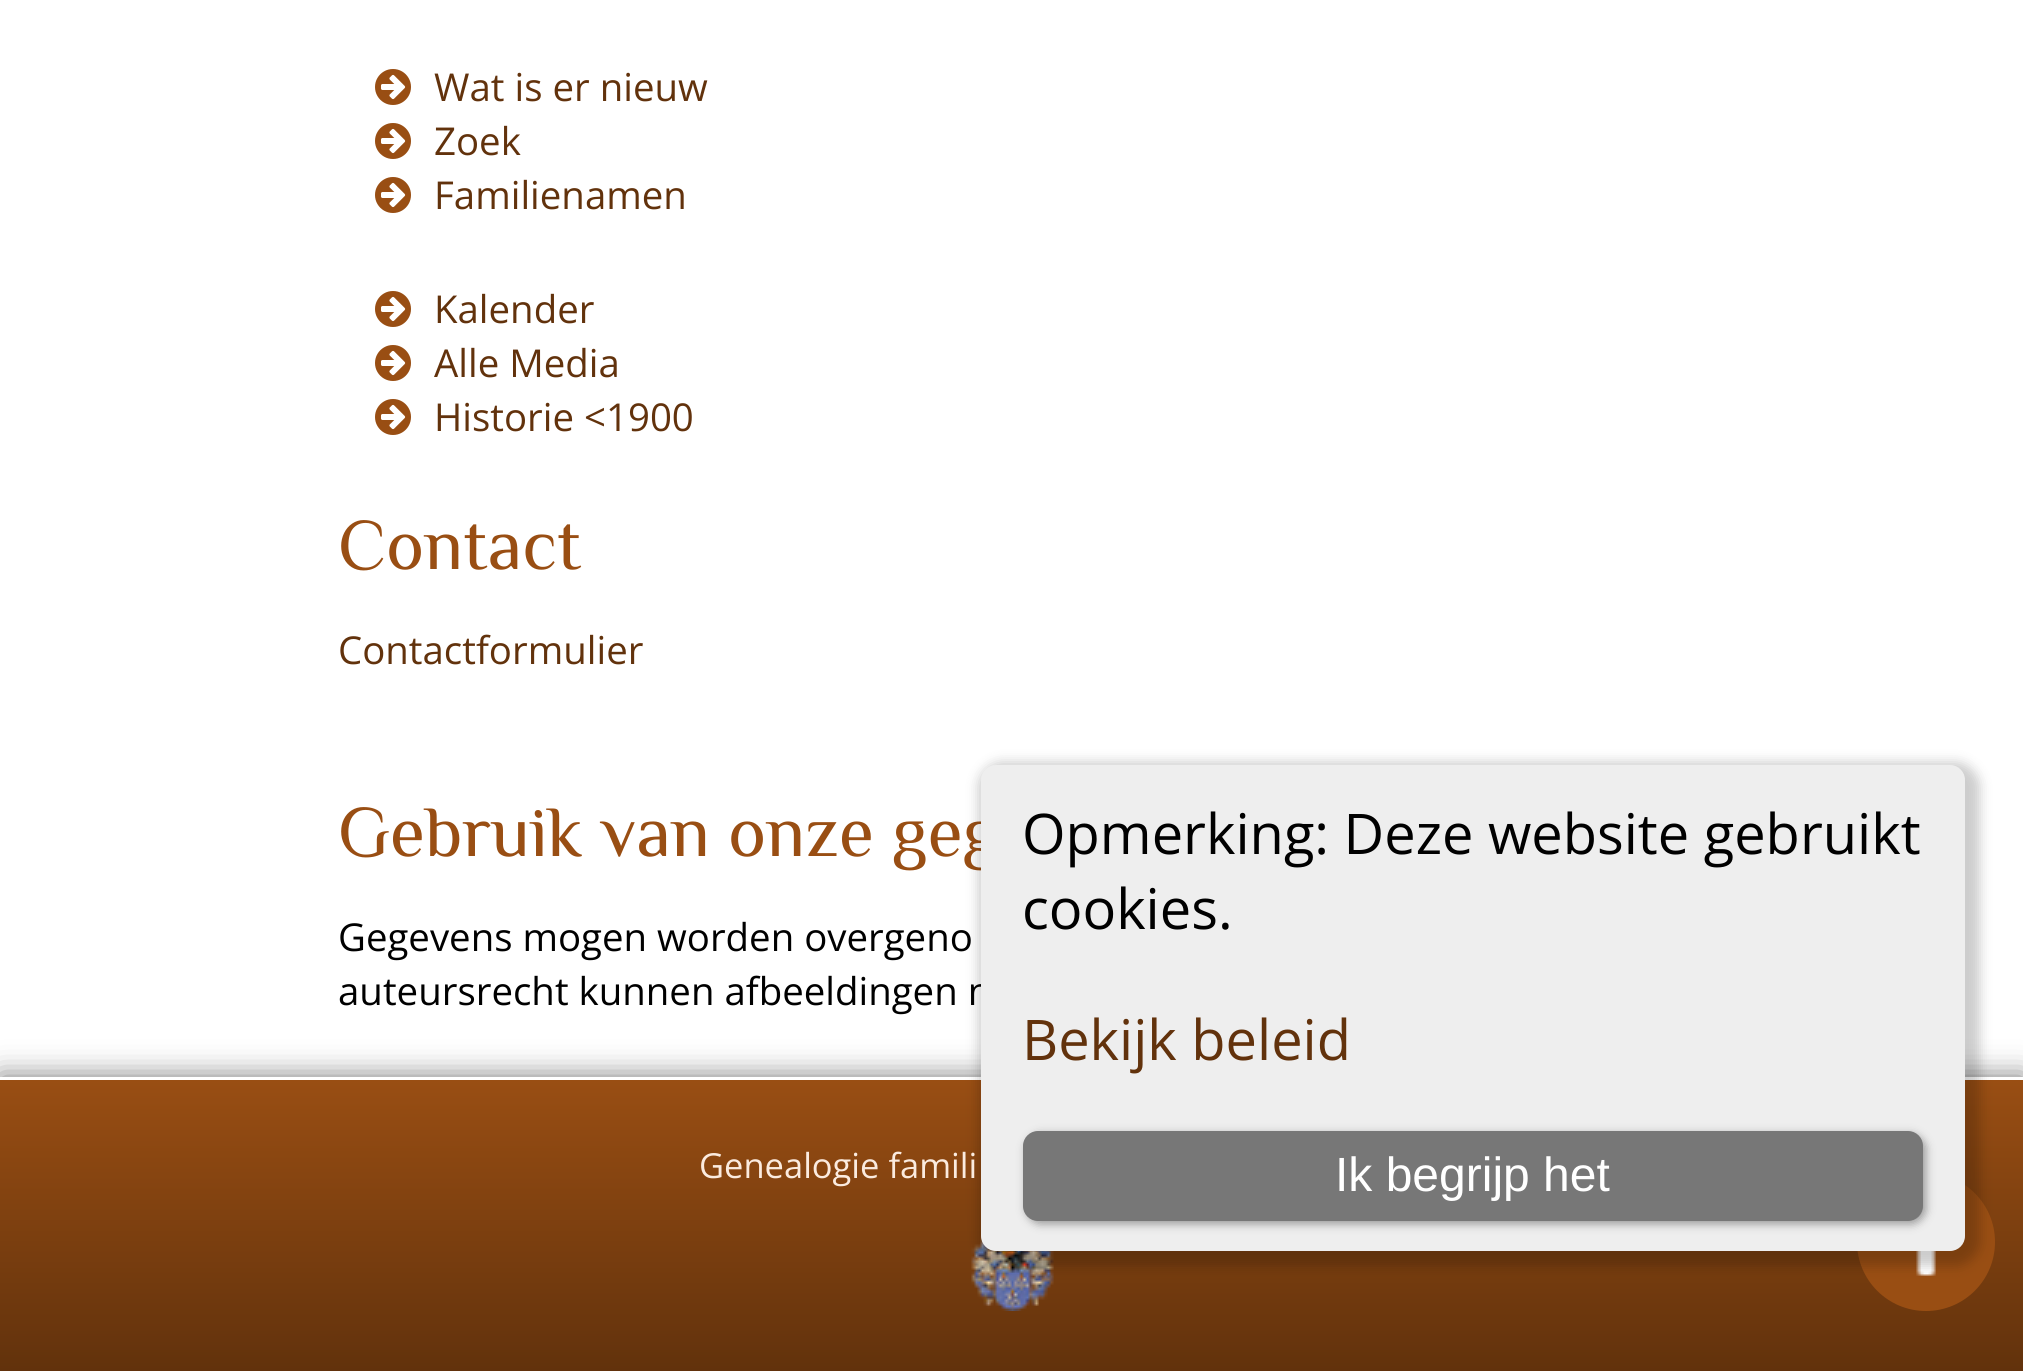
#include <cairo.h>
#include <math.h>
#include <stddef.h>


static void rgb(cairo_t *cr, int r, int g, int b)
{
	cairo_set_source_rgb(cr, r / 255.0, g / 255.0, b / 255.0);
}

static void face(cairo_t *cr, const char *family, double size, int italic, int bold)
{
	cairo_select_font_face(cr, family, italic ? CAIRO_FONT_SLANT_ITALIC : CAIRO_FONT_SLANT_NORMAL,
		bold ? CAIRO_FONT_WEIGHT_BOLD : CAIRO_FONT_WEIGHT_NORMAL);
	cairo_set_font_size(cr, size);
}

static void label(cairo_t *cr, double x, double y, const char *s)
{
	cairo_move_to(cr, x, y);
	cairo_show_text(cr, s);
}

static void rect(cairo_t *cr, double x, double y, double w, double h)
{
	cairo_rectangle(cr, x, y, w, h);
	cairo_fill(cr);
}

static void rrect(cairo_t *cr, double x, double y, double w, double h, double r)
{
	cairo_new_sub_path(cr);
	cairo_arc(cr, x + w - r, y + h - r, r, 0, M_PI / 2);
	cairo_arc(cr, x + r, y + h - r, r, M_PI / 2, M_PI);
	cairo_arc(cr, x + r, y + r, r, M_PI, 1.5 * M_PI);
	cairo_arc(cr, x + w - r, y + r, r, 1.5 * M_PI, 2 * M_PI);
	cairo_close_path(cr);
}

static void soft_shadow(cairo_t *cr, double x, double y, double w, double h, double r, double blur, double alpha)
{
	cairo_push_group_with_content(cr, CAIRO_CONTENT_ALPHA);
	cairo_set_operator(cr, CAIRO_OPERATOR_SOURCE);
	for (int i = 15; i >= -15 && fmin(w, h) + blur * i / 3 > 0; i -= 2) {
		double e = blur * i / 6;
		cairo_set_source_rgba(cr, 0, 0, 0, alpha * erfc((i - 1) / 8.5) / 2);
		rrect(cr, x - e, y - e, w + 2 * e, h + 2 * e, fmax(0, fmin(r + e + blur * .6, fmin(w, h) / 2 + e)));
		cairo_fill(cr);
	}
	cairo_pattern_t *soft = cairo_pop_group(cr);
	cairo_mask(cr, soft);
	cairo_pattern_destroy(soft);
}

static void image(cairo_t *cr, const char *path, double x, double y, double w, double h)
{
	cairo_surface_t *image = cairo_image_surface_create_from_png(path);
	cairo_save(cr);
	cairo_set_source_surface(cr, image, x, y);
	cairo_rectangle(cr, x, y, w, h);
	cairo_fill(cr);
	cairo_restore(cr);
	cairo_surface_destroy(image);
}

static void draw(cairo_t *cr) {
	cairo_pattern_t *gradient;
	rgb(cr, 255, 255, 255);
	cairo_paint(cr);
	image(cr, "image0.png", 375, 69, 36, 36);
	face(cr, "Open Sans", 38.4, 0, 0);
	rgb(cr, 98, 50, 12);
	label(cr, 434, 101, "Wat is er nieuw");
	image(cr, "image0.png", 375, 123, 36, 36);
	label(cr, 434, 155, "Zoek");
	image(cr, "image0.png", 375, 177, 36, 36);
	label(cr, 434, 209, "Familienamen");
	image(cr, "image0.png", 375, 291, 36, 36);
	label(cr, 434, 323, "Kalender");
	image(cr, "image0.png", 375, 345, 36, 36);
	label(cr, 434, 377, "Alle Media");
	image(cr, "image0.png", 375, 399, 36, 36);
	label(cr, 434, 431, "Historie <1900");
	face(cr, "Philosopher", 72, 0, 0);
	rgb(cr, 153, 78, 19);
	label(cr, 338, 569, "Contact");
	face(cr, "Open Sans", 38.4, 0, 0);
	rgb(cr, 98, 50, 12);
	label(cr, 338, 664, "Contactformulier");
	face(cr, "Philosopher", 72, 0, 0);
	rgb(cr, 153, 78, 19);
	label(cr, 338, 856, "Gebruik van onze geg");
	face(cr, "Open Sans", 38.4, 0, 0);
	rgb(cr, 0, 0, 0);
	label(cr, 338, 951, "Gegevens mogen worden overgeno");
	label(cr, 338, 1005, "auteursrecht kunnen afbeeldingen n");
	rgb(cr, 119, 119, 119);
	soft_shadow(cr, 0, 1077, 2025, 294, 0, 15, 1);
	gradient = cairo_pattern_create_linear(1013, 1080, 1013, 1371);
	cairo_pattern_add_color_stop_rgba(gradient, 0, 0.6, 0.306, 0.075, 1);
	cairo_pattern_add_color_stop_rgba(gradient, 1, 0.384, 0.196, 0.047, 1);
	cairo_set_source(cr, gradient);
	cairo_pattern_destroy(gradient);
	rect(cr, 0, 1080, 2023, 291);
	rgb(cr, 255, 255, 255);
	rect(cr, 0, 1077, 2023, 3);
	image(cr, "image1.png", 971, 1236, 83, 75);
	rgb(cr, 153, 78, 19);
	cairo_arc(cr, 1926, 1242, 69, 0, 2 * M_PI);
	cairo_fill(cr);
	image(cr, "image2.png", 1916, 1251, 20, 25);
	rgb(cr, 0, 0, 0);
	soft_shadow(cr, 978, 762, 1002, 504, 24, 6, 0.2);
	rgb(cr, 238, 238, 238);
	rrect(cr, 981, 765, 984, 486, 15);
	cairo_fill(cr);
	face(cr, "Open Sans", 56, 0, 0);
	rgb(cr, 0, 0, 0);
	label(cr, 1022, 854, "Opmerking: Deze website gebruikt");
	label(cr, 1022, 929, "cookies.");
	rgb(cr, 98, 50, 12);
	label(cr, 1022, 1060, "Bekijk beleid");
	rgb(cr, 153, 153, 153);
	soft_shadow(cr, 1026, 1134, 900, 90, 15, 4.5, 1);
	rgb(cr, 119, 119, 119);
	rrect(cr, 1023, 1131, 900, 90, 15);
	cairo_fill(cr);
	face(cr, "Liberation Sans", 48, 0, 0);
	rgb(cr, 255, 255, 255);
	label(cr, 1335, 1191, "Ik begrijp het");
	face(cr, "Open Sans", 34.5, 0, 0);
	rgb(cr, 251, 235, 223);
	label(cr, 699, 1178, "Genealogie famili");
}

int main(void) {
	cairo_surface_t *surface = cairo_image_surface_create(CAIRO_FORMAT_RGB24, 2023, 1371);
	cairo_t *cr = cairo_create(surface);
	cairo_font_options_t *options = cairo_font_options_create();
	cairo_font_options_set_hint_metrics(options, CAIRO_HINT_METRICS_OFF);
	cairo_font_options_set_hint_style(options, CAIRO_HINT_STYLE_NONE);
	cairo_set_font_options(cr, options);
	cairo_set_miter_limit(cr, 4);
	draw(cr);
	cairo_surface_write_to_png(surface, "render.png");
	cairo_font_options_destroy(options);
	cairo_destroy(cr);
	cairo_surface_destroy(surface);
	return 0;
}
